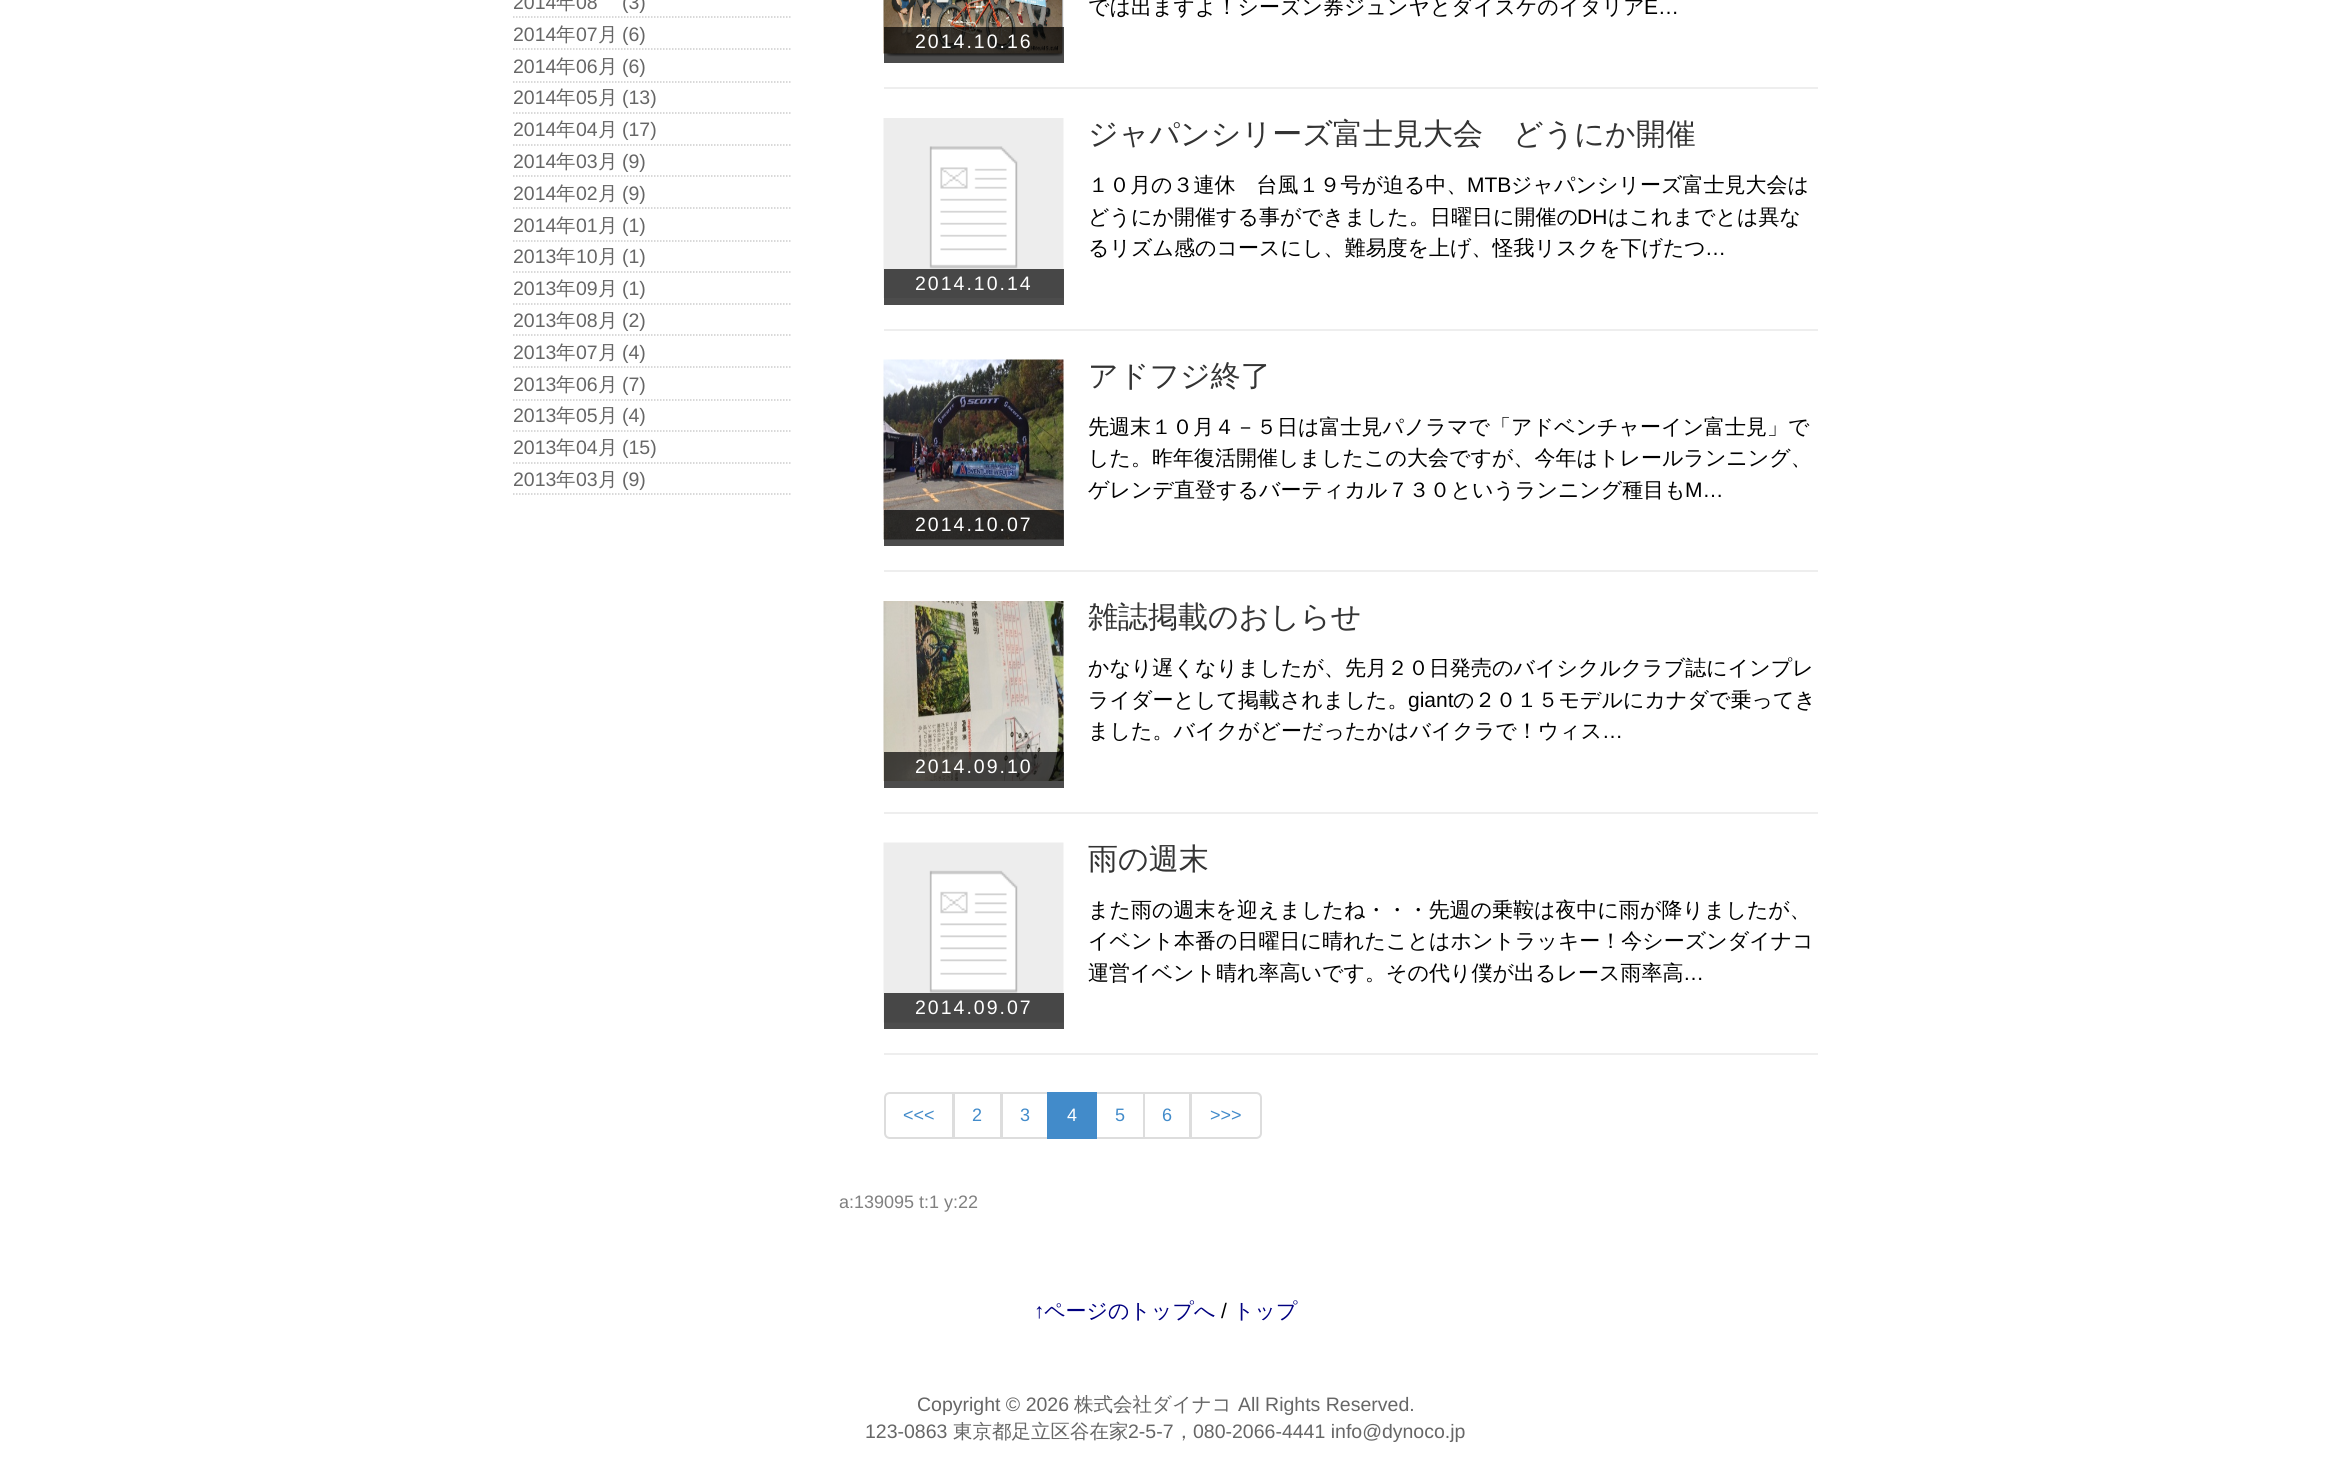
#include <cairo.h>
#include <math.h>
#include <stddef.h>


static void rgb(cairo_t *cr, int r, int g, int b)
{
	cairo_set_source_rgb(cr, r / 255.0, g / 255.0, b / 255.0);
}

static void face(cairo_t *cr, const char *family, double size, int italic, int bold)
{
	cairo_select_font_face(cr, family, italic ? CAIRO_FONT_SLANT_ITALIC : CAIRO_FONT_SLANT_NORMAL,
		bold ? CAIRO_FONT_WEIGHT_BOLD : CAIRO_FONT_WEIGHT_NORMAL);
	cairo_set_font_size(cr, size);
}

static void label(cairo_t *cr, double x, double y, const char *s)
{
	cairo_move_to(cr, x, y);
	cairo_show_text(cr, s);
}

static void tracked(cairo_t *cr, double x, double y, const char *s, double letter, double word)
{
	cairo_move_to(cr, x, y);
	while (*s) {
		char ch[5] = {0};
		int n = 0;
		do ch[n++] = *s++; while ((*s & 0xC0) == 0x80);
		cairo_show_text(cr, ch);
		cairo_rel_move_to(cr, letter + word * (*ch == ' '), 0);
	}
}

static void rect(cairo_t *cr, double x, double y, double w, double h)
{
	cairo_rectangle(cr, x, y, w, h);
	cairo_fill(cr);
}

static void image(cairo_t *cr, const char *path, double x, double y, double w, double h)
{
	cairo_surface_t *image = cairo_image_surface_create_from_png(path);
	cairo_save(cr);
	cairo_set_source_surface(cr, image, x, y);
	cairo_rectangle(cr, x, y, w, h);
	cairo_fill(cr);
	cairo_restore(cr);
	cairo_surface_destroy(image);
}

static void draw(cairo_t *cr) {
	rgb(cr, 255, 255, 255);
	cairo_paint(cr);
	cairo_new_path(cr);
	cairo_move_to(cr, 513, 17);
	cairo_line_to(cr, 790.5, 17);
	rgb(cr, 204, 204, 204);
	cairo_set_line_width(cr, 1.5);
	cairo_set_dash(cr, (double[]){1.5, 1.5}, 2, 0);
	cairo_stroke(cr);
	face(cr, "Liberation Sans", 19.5, 0, 0);
	rgb(cr, 102, 102, 102);
	label(cr, 513, 9, "2014");
	face(cr, "WenQuanYi Zen Hei Medium", 19.5, 0, 0);
	label(cr, 556, 9, "年");
	face(cr, "Liberation Sans", 19.5, 0, 0);
	label(cr, 576, 9, "08");
	label(cr, 622, 9, "(3)");
	cairo_new_path(cr);
	cairo_move_to(cr, 513, 49);
	cairo_line_to(cr, 790.5, 49);
	rgb(cr, 204, 204, 204);
	cairo_stroke(cr);
	rgb(cr, 102, 102, 102);
	label(cr, 513, 41, "2014");
	face(cr, "WenQuanYi Zen Hei Medium", 19.5, 0, 0);
	label(cr, 556, 41, "年");
	face(cr, "Liberation Sans", 19.5, 0, 0);
	label(cr, 576, 41, "07");
	face(cr, "WenQuanYi Zen Hei Medium", 19.5, 0, 0);
	label(cr, 598, 41, "月");
	face(cr, "Liberation Sans", 19.5, 0, 0);
	label(cr, 622, 41, "(6)");
	cairo_new_path(cr);
	cairo_move_to(cr, 513, 82);
	cairo_line_to(cr, 790.5, 82);
	rgb(cr, 204, 204, 204);
	cairo_stroke(cr);
	rgb(cr, 102, 102, 102);
	label(cr, 513, 73, "2014");
	face(cr, "WenQuanYi Zen Hei Medium", 19.5, 0, 0);
	label(cr, 556, 73, "年");
	face(cr, "Liberation Sans", 19.5, 0, 0);
	label(cr, 576, 73, "06");
	face(cr, "WenQuanYi Zen Hei Medium", 19.5, 0, 0);
	label(cr, 598, 73, "月");
	face(cr, "Liberation Sans", 19.5, 0, 0);
	label(cr, 622, 73, "(6)");
	cairo_new_path(cr);
	cairo_move_to(cr, 513, 113);
	cairo_line_to(cr, 790.5, 113);
	rgb(cr, 204, 204, 204);
	cairo_stroke(cr);
	rgb(cr, 102, 102, 102);
	label(cr, 513, 104, "2014");
	face(cr, "WenQuanYi Zen Hei Medium", 19.5, 0, 0);
	label(cr, 556, 104, "年");
	face(cr, "Liberation Sans", 19.5, 0, 0);
	label(cr, 576, 104, "05");
	face(cr, "WenQuanYi Zen Hei Medium", 19.5, 0, 0);
	label(cr, 598, 104, "月");
	face(cr, "Liberation Sans", 19.5, 0, 0);
	label(cr, 622, 104, "(13)");
	cairo_new_path(cr);
	cairo_move_to(cr, 513, 145);
	cairo_line_to(cr, 790.5, 145);
	rgb(cr, 204, 204, 204);
	cairo_stroke(cr);
	rgb(cr, 102, 102, 102);
	label(cr, 513, 136, "2014");
	face(cr, "WenQuanYi Zen Hei Medium", 19.5, 0, 0);
	label(cr, 556, 136, "年");
	face(cr, "Liberation Sans", 19.5, 0, 0);
	label(cr, 576, 136, "04");
	face(cr, "WenQuanYi Zen Hei Medium", 19.5, 0, 0);
	label(cr, 598, 136, "月");
	face(cr, "Liberation Sans", 19.5, 0, 0);
	label(cr, 622, 136, "(17)");
	cairo_new_path(cr);
	cairo_move_to(cr, 513, 176);
	cairo_line_to(cr, 790.5, 176);
	rgb(cr, 204, 204, 204);
	cairo_stroke(cr);
	rgb(cr, 102, 102, 102);
	label(cr, 513, 168, "2014");
	face(cr, "WenQuanYi Zen Hei Medium", 19.5, 0, 0);
	label(cr, 556, 168, "年");
	face(cr, "Liberation Sans", 19.5, 0, 0);
	label(cr, 576, 168, "03");
	face(cr, "WenQuanYi Zen Hei Medium", 19.5, 0, 0);
	label(cr, 598, 168, "月");
	face(cr, "Liberation Sans", 19.5, 0, 0);
	label(cr, 622, 168, "(9)");
	cairo_new_path(cr);
	cairo_move_to(cr, 513, 208);
	cairo_line_to(cr, 790.5, 208);
	rgb(cr, 204, 204, 204);
	cairo_stroke(cr);
	rgb(cr, 102, 102, 102);
	label(cr, 513, 200, "2014");
	face(cr, "WenQuanYi Zen Hei Medium", 19.5, 0, 0);
	label(cr, 556, 200, "年");
	face(cr, "Liberation Sans", 19.5, 0, 0);
	label(cr, 576, 200, "02");
	face(cr, "WenQuanYi Zen Hei Medium", 19.5, 0, 0);
	label(cr, 598, 200, "月");
	face(cr, "Liberation Sans", 19.5, 0, 0);
	label(cr, 622, 200, "(9)");
	cairo_new_path(cr);
	cairo_move_to(cr, 513, 241);
	cairo_line_to(cr, 790.5, 241);
	rgb(cr, 204, 204, 204);
	cairo_stroke(cr);
	rgb(cr, 102, 102, 102);
	label(cr, 513, 232, "2014");
	face(cr, "WenQuanYi Zen Hei Medium", 19.5, 0, 0);
	label(cr, 556, 232, "年");
	face(cr, "Liberation Sans", 19.5, 0, 0);
	label(cr, 576, 232, "01");
	face(cr, "WenQuanYi Zen Hei Medium", 19.5, 0, 0);
	label(cr, 598, 232, "月");
	face(cr, "Liberation Sans", 19.5, 0, 0);
	label(cr, 622, 232, "(1)");
	cairo_new_path(cr);
	cairo_move_to(cr, 513, 272);
	cairo_line_to(cr, 790.5, 272);
	rgb(cr, 204, 204, 204);
	cairo_stroke(cr);
	rgb(cr, 102, 102, 102);
	label(cr, 513, 263, "2013");
	face(cr, "WenQuanYi Zen Hei Medium", 19.5, 0, 0);
	label(cr, 556, 263, "年");
	face(cr, "Liberation Sans", 19.5, 0, 0);
	label(cr, 576, 263, "10");
	face(cr, "WenQuanYi Zen Hei Medium", 19.5, 0, 0);
	label(cr, 598, 263, "月");
	face(cr, "Liberation Sans", 19.5, 0, 0);
	label(cr, 622, 263, "(1)");
	cairo_new_path(cr);
	cairo_move_to(cr, 513, 304);
	cairo_line_to(cr, 790.5, 304);
	rgb(cr, 204, 204, 204);
	cairo_stroke(cr);
	rgb(cr, 102, 102, 102);
	label(cr, 513, 295, "2013");
	face(cr, "WenQuanYi Zen Hei Medium", 19.5, 0, 0);
	label(cr, 556, 295, "年");
	face(cr, "Liberation Sans", 19.5, 0, 0);
	label(cr, 576, 295, "09");
	face(cr, "WenQuanYi Zen Hei Medium", 19.5, 0, 0);
	label(cr, 598, 295, "月");
	face(cr, "Liberation Sans", 19.5, 0, 0);
	label(cr, 622, 295, "(1)");
	cairo_new_path(cr);
	cairo_move_to(cr, 513, 335);
	cairo_line_to(cr, 790.5, 335);
	rgb(cr, 204, 204, 204);
	cairo_stroke(cr);
	rgb(cr, 102, 102, 102);
	label(cr, 513, 327, "2013");
	face(cr, "WenQuanYi Zen Hei Medium", 19.5, 0, 0);
	label(cr, 556, 327, "年");
	face(cr, "Liberation Sans", 19.5, 0, 0);
	label(cr, 576, 327, "08");
	face(cr, "WenQuanYi Zen Hei Medium", 19.5, 0, 0);
	label(cr, 598, 327, "月");
	face(cr, "Liberation Sans", 19.5, 0, 0);
	label(cr, 622, 327, "(2)");
	cairo_new_path(cr);
	cairo_move_to(cr, 513, 367);
	cairo_line_to(cr, 790.5, 367);
	rgb(cr, 204, 204, 204);
	cairo_stroke(cr);
	rgb(cr, 102, 102, 102);
	label(cr, 513, 359, "2013");
	face(cr, "WenQuanYi Zen Hei Medium", 19.5, 0, 0);
	label(cr, 556, 359, "年");
	face(cr, "Liberation Sans", 19.5, 0, 0);
	label(cr, 576, 359, "07");
	face(cr, "WenQuanYi Zen Hei Medium", 19.5, 0, 0);
	label(cr, 598, 359, "月");
	face(cr, "Liberation Sans", 19.5, 0, 0);
	label(cr, 622, 359, "(4)");
	cairo_new_path(cr);
	cairo_move_to(cr, 513, 400);
	cairo_line_to(cr, 790.5, 400);
	rgb(cr, 204, 204, 204);
	cairo_stroke(cr);
	rgb(cr, 102, 102, 102);
	label(cr, 513, 391, "2013");
	face(cr, "WenQuanYi Zen Hei Medium", 19.5, 0, 0);
	label(cr, 556, 391, "年");
	face(cr, "Liberation Sans", 19.5, 0, 0);
	label(cr, 576, 391, "06");
	face(cr, "WenQuanYi Zen Hei Medium", 19.5, 0, 0);
	label(cr, 598, 391, "月");
	face(cr, "Liberation Sans", 19.5, 0, 0);
	label(cr, 622, 391, "(7)");
	cairo_new_path(cr);
	cairo_move_to(cr, 513, 431);
	cairo_line_to(cr, 790.5, 431);
	rgb(cr, 204, 204, 204);
	cairo_stroke(cr);
	rgb(cr, 102, 102, 102);
	label(cr, 513, 422, "2013");
	face(cr, "WenQuanYi Zen Hei Medium", 19.5, 0, 0);
	label(cr, 556, 422, "年");
	face(cr, "Liberation Sans", 19.5, 0, 0);
	label(cr, 576, 422, "05");
	face(cr, "WenQuanYi Zen Hei Medium", 19.5, 0, 0);
	label(cr, 598, 422, "月");
	face(cr, "Liberation Sans", 19.5, 0, 0);
	label(cr, 622, 422, "(4)");
	cairo_new_path(cr);
	cairo_move_to(cr, 513, 463);
	cairo_line_to(cr, 790.5, 463);
	rgb(cr, 204, 204, 204);
	cairo_stroke(cr);
	rgb(cr, 102, 102, 102);
	label(cr, 513, 454, "2013");
	face(cr, "WenQuanYi Zen Hei Medium", 19.5, 0, 0);
	label(cr, 556, 454, "年");
	face(cr, "Liberation Sans", 19.5, 0, 0);
	label(cr, 576, 454, "04");
	face(cr, "WenQuanYi Zen Hei Medium", 19.5, 0, 0);
	label(cr, 598, 454, "月");
	face(cr, "Liberation Sans", 19.5, 0, 0);
	label(cr, 622, 454, "(15)");
	cairo_new_path(cr);
	cairo_move_to(cr, 513, 494);
	cairo_line_to(cr, 790.5, 494);
	rgb(cr, 204, 204, 204);
	cairo_stroke(cr);
	rgb(cr, 102, 102, 102);
	label(cr, 513, 486, "2013");
	face(cr, "WenQuanYi Zen Hei Medium", 19.5, 0, 0);
	label(cr, 556, 486, "年");
	face(cr, "Liberation Sans", 19.5, 0, 0);
	label(cr, 576, 486, "03");
	face(cr, "WenQuanYi Zen Hei Medium", 19.5, 0, 0);
	label(cr, 598, 486, "月");
	face(cr, "Liberation Sans", 19.5, 0, 0);
	label(cr, 622, 486, "(9)");
	rgb(cr, 238, 238, 238);
	rect(cr, 884, 87, 934, 2);
	face(cr, "WenQuanYi Zen Hei Medium", 21, 0, 0);
	rgb(cr, 0, 0, 0);
	label(cr, 1088, 14, "では出ますよ！シーズン券ジュンヤとダイスケのイタリア");
	face(cr, "Liberation Sans", 21, 0, 0);
	label(cr, 1644, 14, "E…");
	image(cr, "image0.png", 883, 0, 181, 57);
	cairo_set_source_rgba(cr, 0, 0, 0, 0.7);
	rect(cr, 884, 27, 180, 36);
	face(cr, "Liberation Sans", 19.5, 0, 0);
	rgb(cr, 255, 255, 255);
	tracked(cr, 915, 48, "2014.10.16", 2, 0);
	rgb(cr, 238, 238, 238);
	rect(cr, 884, 329, 934, 2);
	face(cr, "WenQuanYi Zen Hei Medium", 30, 0, 0);
	rgb(cr, 51, 51, 51);
	label(cr, 1088, 144, "ジャパンシリーズ富士見大会　どうにか開催");
	face(cr, "WenQuanYi Zen Hei Medium", 21, 0, 0);
	rgb(cr, 0, 0, 0);
	label(cr, 1088, 192, "１０月の３連休　台風１９号が迫る中、");
	face(cr, "Liberation Sans", 21, 0, 0);
	label(cr, 1467, 192, "MTB");
	face(cr, "WenQuanYi Zen Hei Medium", 21, 0, 0);
	label(cr, 1511, 192, "ジャパンシリーズ富士見大会は");
	label(cr, 1088, 224, "どうにか開催する事ができました。日曜日に開催の");
	face(cr, "Liberation Sans", 21, 0, 0);
	label(cr, 1577, 224, "DH");
	face(cr, "WenQuanYi Zen Hei Medium", 21, 0, 0);
	label(cr, 1608, 224, "はこれまでとは異な");
	label(cr, 1088, 255, "るリズム感のコースにし、難易度を上げ、怪我リスクを下げたつ");
	face(cr, "Liberation Sans", 21, 0, 0);
	label(cr, 1705, 255, "…");
	image(cr, "image1.png", 883, 118, 181, 180);
	cairo_set_source_rgba(cr, 0, 0, 0, 0.7);
	rect(cr, 884, 269, 180, 36);
	face(cr, "Liberation Sans", 19.5, 0, 0);
	rgb(cr, 255, 255, 255);
	tracked(cr, 915, 290, "2014.10.14", 2, 0);
	rgb(cr, 238, 238, 238);
	rect(cr, 884, 570, 934, 2);
	face(cr, "WenQuanYi Zen Hei Medium", 30, 0, 0);
	rgb(cr, 51, 51, 51);
	label(cr, 1088, 386, "アドフジ終了");
	face(cr, "WenQuanYi Zen Hei Medium", 21, 0, 0);
	rgb(cr, 0, 0, 0);
	label(cr, 1088, 434, "先週末１０月４－５日は富士見パノラマで「アドベンチャーイン富士見」で");
	label(cr, 1088, 465, "した。昨年復活開催しましたこの大会ですが、今年はトレールランニング、");
	label(cr, 1088, 497, "ゲレンデ直登するバーティカル７３０というランニング種目も");
	face(cr, "Liberation Sans", 21, 0, 0);
	label(cr, 1685, 497, "M…");
	image(cr, "image2.png", 883, 359, 181, 181);
	cairo_set_source_rgba(cr, 0, 0, 0, 0.7);
	rect(cr, 884, 510, 180, 36);
	face(cr, "Liberation Sans", 19.5, 0, 0);
	rgb(cr, 255, 255, 255);
	tracked(cr, 915, 531, "2014.10.07", 2, 0);
	rgb(cr, 238, 238, 238);
	rect(cr, 884, 812, 934, 2);
	face(cr, "WenQuanYi Zen Hei Medium", 30, 0, 0);
	rgb(cr, 51, 51, 51);
	label(cr, 1088, 627, "雑誌掲載のおしらせ");
	face(cr, "WenQuanYi Zen Hei Medium", 21, 0, 0);
	rgb(cr, 0, 0, 0);
	label(cr, 1088, 675, "かなり遅くなりましたが、先月２０日発売のバイシクルクラブ誌にインプレ");
	label(cr, 1088, 707, "ライダーとして掲載されました。");
	face(cr, "Liberation Sans", 21, 0, 0);
	label(cr, 1408, 707, "giant");
	face(cr, "WenQuanYi Zen Hei Medium", 21, 0, 0);
	label(cr, 1453, 707, "の２０１５モデルにカナダで乗ってき");
	label(cr, 1088, 738, "ました。バイクがどーだったかはバイクラで！ウィス");
	face(cr, "Liberation Sans", 21, 0, 0);
	label(cr, 1602, 738, "…");
	image(cr, "image3.png", 883, 601, 181, 180);
	cairo_set_source_rgba(cr, 0, 0, 0, 0.7);
	rect(cr, 884, 752, 180, 36);
	face(cr, "Liberation Sans", 19.5, 0, 0);
	rgb(cr, 255, 255, 255);
	tracked(cr, 915, 773, "2014.09.10", 2, 0);
	rgb(cr, 238, 238, 238);
	rect(cr, 884, 1053, 934, 2);
	face(cr, "WenQuanYi Zen Hei Medium", 30, 0, 0);
	rgb(cr, 51, 51, 51);
	label(cr, 1088, 869, "雨の週末");
	face(cr, "WenQuanYi Zen Hei Medium", 21, 0, 0);
	rgb(cr, 0, 0, 0);
	label(cr, 1088, 917, "また雨の週末を迎えましたね・・・先週の乗鞍は夜中に雨が降りましたが、");
	label(cr, 1088, 948, "イベント本番の日曜日に晴れたことはホントラッキー！今シーズンダイナコ");
	label(cr, 1088, 980, "運営イベント晴れ率高いです。その代り僕が出るレース雨率高");
	face(cr, "Liberation Sans", 21, 0, 0);
	label(cr, 1683, 980, "…");
	image(cr, "image4.png", 883, 842, 181, 181);
	cairo_set_source_rgba(cr, 0, 0, 0, 0.7);
	rect(cr, 884, 993, 180, 36);
	face(cr, "Liberation Sans", 19.5, 0, 0);
	rgb(cr, 255, 255, 255);
	tracked(cr, 915, 1014, "2014.09.07", 2, 0);
	cairo_new_path(cr);
	cairo_move_to(cr, 890, 1093);
	cairo_line_to(cr, 953, 1093);
	cairo_line_to(cr, 953, 1138);
	cairo_line_to(cr, 890, 1138);
	cairo_curve_to(cr, 887, 1138, 885, 1136, 885, 1133);
	cairo_line_to(cr, 885, 1098);
	cairo_curve_to(cr, 885, 1095, 887, 1093, 890, 1093);
	cairo_close_path(cr);
	rgb(cr, 221, 221, 221);
	cairo_set_line_width(cr, 2);
	cairo_set_dash(cr, NULL, 0, 0);
	cairo_stroke(cr);
	face(cr, "Liberation Sans", 18, 0, 0);
	rgb(cr, 66, 139, 202);
	label(cr, 903, 1121, "<<<");
	cairo_rectangle(cr, 954, 1093, 47, 45);
	rgb(cr, 221, 221, 221);
	cairo_stroke(cr);
	rgb(cr, 66, 139, 202);
	label(cr, 972, 1121, "2");
	cairo_rectangle(cr, 1002, 1093, 46, 45);
	rgb(cr, 221, 221, 221);
	cairo_stroke(cr);
	rgb(cr, 66, 139, 202);
	label(cr, 1020, 1121, "3");
	cairo_rectangle(cr, 1096, 1093, 48, 45);
	rgb(cr, 221, 221, 221);
	cairo_stroke(cr);
	rgb(cr, 66, 139, 202);
	rect(cr, 1047, 1092, 50, 47);
	rgb(cr, 255, 255, 255);
	label(cr, 1067, 1121, "4");
	rgb(cr, 66, 139, 202);
	label(cr, 1115, 1121, "5");
	cairo_rectangle(cr, 1144, 1093, 46, 45);
	rgb(cr, 221, 221, 221);
	cairo_stroke(cr);
	rgb(cr, 66, 139, 202);
	label(cr, 1162, 1121, "6");
	rgb(cr, 255, 255, 255);
	cairo_new_path(cr);
	cairo_move_to(cr, 1191, 1093);
	cairo_line_to(cr, 1256, 1093);
	cairo_curve_to(cr, 1259, 1093, 1261, 1095, 1261, 1098);
	cairo_line_to(cr, 1261, 1133);
	cairo_curve_to(cr, 1261, 1136, 1259, 1138, 1256, 1138);
	cairo_line_to(cr, 1191, 1138);
	cairo_close_path(cr);
	cairo_fill_preserve(cr);
	rgb(cr, 221, 221, 221);
	cairo_stroke(cr);
	rgb(cr, 66, 139, 202);
	label(cr, 1210, 1121, ">>>");
	rgb(cr, 128, 128, 128);
	label(cr, 839, 1208, "a:139095 t:1 y:22");
	face(cr, "Liberation Sans", 21, 0, 0);
	rgb(cr, 0, 0, 128);
	label(cr, 1034, 1318, "↑");
	face(cr, "WenQuanYi Zen Hei Medium", 21, 0, 0);
	label(cr, 1044, 1318, "ページのトップへ");
	face(cr, "Liberation Sans", 21, 0, 0);
	rgb(cr, 0, 0, 0);
	label(cr, 1221, 1318, "/");
	face(cr, "WenQuanYi Zen Hei Medium", 21, 0, 0);
	rgb(cr, 0, 0, 128);
	label(cr, 1233, 1318, "トップ");
	face(cr, "Liberation Sans", 19.5, 0, 0);
	rgb(cr, 102, 102, 102);
	label(cr, 917, 1411, "Copyright © 2026");
	face(cr, "WenQuanYi Zen Hei Medium", 19.5, 0, 0);
	label(cr, 1074, 1411, "株式会社ダイナコ");
	face(cr, "Liberation Sans", 19.5, 0, 0);
	label(cr, 1238, 1411, "All Rights Reserved.");
	label(cr, 865, 1438, "123-0863");
	face(cr, "WenQuanYi Zen Hei Medium", 19.5, 0, 0);
	label(cr, 953, 1438, "東京都足立区谷在家");
	face(cr, "Liberation Sans", 19.5, 0, 0);
	label(cr, 1128, 1438, "2-5-7");
	face(cr, "WenQuanYi Zen Hei Medium", 19.5, 0, 0);
	label(cr, 1174, 1438, "，");
	face(cr, "Liberation Sans", 19.5, 0, 0);
	label(cr, 1193, 1438, "080-2066-4441 info@dynoco.jp");
}

int main(void) {
	cairo_surface_t *surface = cairo_image_surface_create(CAIRO_FORMAT_RGB24, 2330, 1463);
	cairo_t *cr = cairo_create(surface);
	cairo_font_options_t *options = cairo_font_options_create();
	cairo_font_options_set_hint_metrics(options, CAIRO_HINT_METRICS_OFF);
	cairo_font_options_set_hint_style(options, CAIRO_HINT_STYLE_NONE);
	cairo_set_font_options(cr, options);
	cairo_set_miter_limit(cr, 4);
	draw(cr);
	cairo_surface_write_to_png(surface, "render.png");
	cairo_font_options_destroy(options);
	cairo_destroy(cr);
	cairo_surface_destroy(surface);
	return 0;
}
